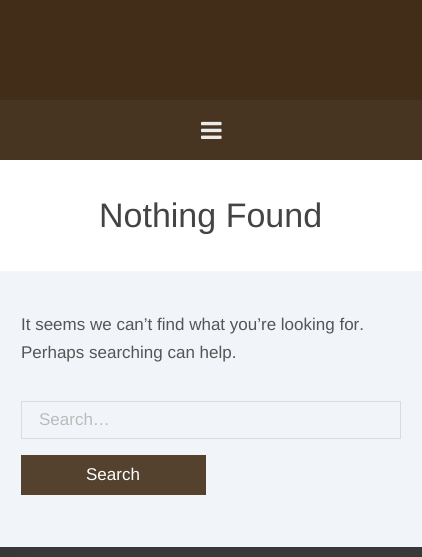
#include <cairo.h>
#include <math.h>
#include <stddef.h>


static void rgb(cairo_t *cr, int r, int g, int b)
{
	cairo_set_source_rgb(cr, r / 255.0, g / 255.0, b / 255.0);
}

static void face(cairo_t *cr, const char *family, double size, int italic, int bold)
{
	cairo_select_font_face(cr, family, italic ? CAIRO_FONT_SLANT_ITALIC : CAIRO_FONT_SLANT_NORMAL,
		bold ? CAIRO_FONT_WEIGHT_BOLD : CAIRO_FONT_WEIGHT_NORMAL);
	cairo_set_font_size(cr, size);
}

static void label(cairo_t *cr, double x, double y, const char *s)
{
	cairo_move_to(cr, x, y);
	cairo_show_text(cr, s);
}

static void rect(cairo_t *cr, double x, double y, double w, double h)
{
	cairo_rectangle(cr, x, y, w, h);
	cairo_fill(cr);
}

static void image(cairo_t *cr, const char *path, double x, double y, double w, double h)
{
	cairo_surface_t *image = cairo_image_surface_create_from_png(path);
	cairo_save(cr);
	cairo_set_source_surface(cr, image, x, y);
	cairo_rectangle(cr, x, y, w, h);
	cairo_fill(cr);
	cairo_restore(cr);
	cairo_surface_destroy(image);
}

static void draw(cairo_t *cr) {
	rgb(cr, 66, 46, 24);
	cairo_paint(cr);
	rgb(cr, 72, 53, 33);
	rect(cr, 0, 100, 422, 60);
	image(cr, "image0.png", 201, 121, 21, 18);
	rgb(cr, 255, 255, 255);
	rect(cr, 0, 160, 422, 111);
	face(cr, "Liberation Sans", 34, 0, 0);
	rgb(cr, 68, 68, 68);
	label(cr, 99, 227, "Nothing Found");
	rgb(cr, 241, 245, 249);
	rect(cr, 0, 271, 422, 276);
	face(cr, "Liberation Sans", 17, 0, 0);
	rgb(cr, 85, 85, 85);
	label(cr, 21, 330, "It seems we can’t find what you’re looking for.");
	label(cr, 21, 358, "Perhaps searching can help.");
	cairo_rectangle(cr, 21.5, 401.5, 379, 37);
	rgb(cr, 217, 220, 223);
	cairo_set_line_width(cr, 1);
	cairo_stroke(cr);
	rgb(cr, 187, 187, 187);
	label(cr, 39, 425, "Search…");
	rgb(cr, 84, 66, 47);
	rect(cr, 21, 455, 185, 40);
	rgb(cr, 255, 255, 255);
	label(cr, 86, 480, "Search");
	image(cr, "image1.png", 0, 547, 422, 10);
}

int main(void) {
	cairo_surface_t *surface = cairo_image_surface_create(CAIRO_FORMAT_RGB24, 422, 557);
	cairo_t *cr = cairo_create(surface);
	cairo_font_options_t *options = cairo_font_options_create();
	cairo_font_options_set_hint_metrics(options, CAIRO_HINT_METRICS_OFF);
	cairo_font_options_set_hint_style(options, CAIRO_HINT_STYLE_NONE);
	cairo_set_font_options(cr, options);
	cairo_set_miter_limit(cr, 4);
	draw(cr);
	cairo_surface_write_to_png(surface, "render.png");
	cairo_font_options_destroy(options);
	cairo_destroy(cr);
	cairo_surface_destroy(surface);
	return 0;
}
